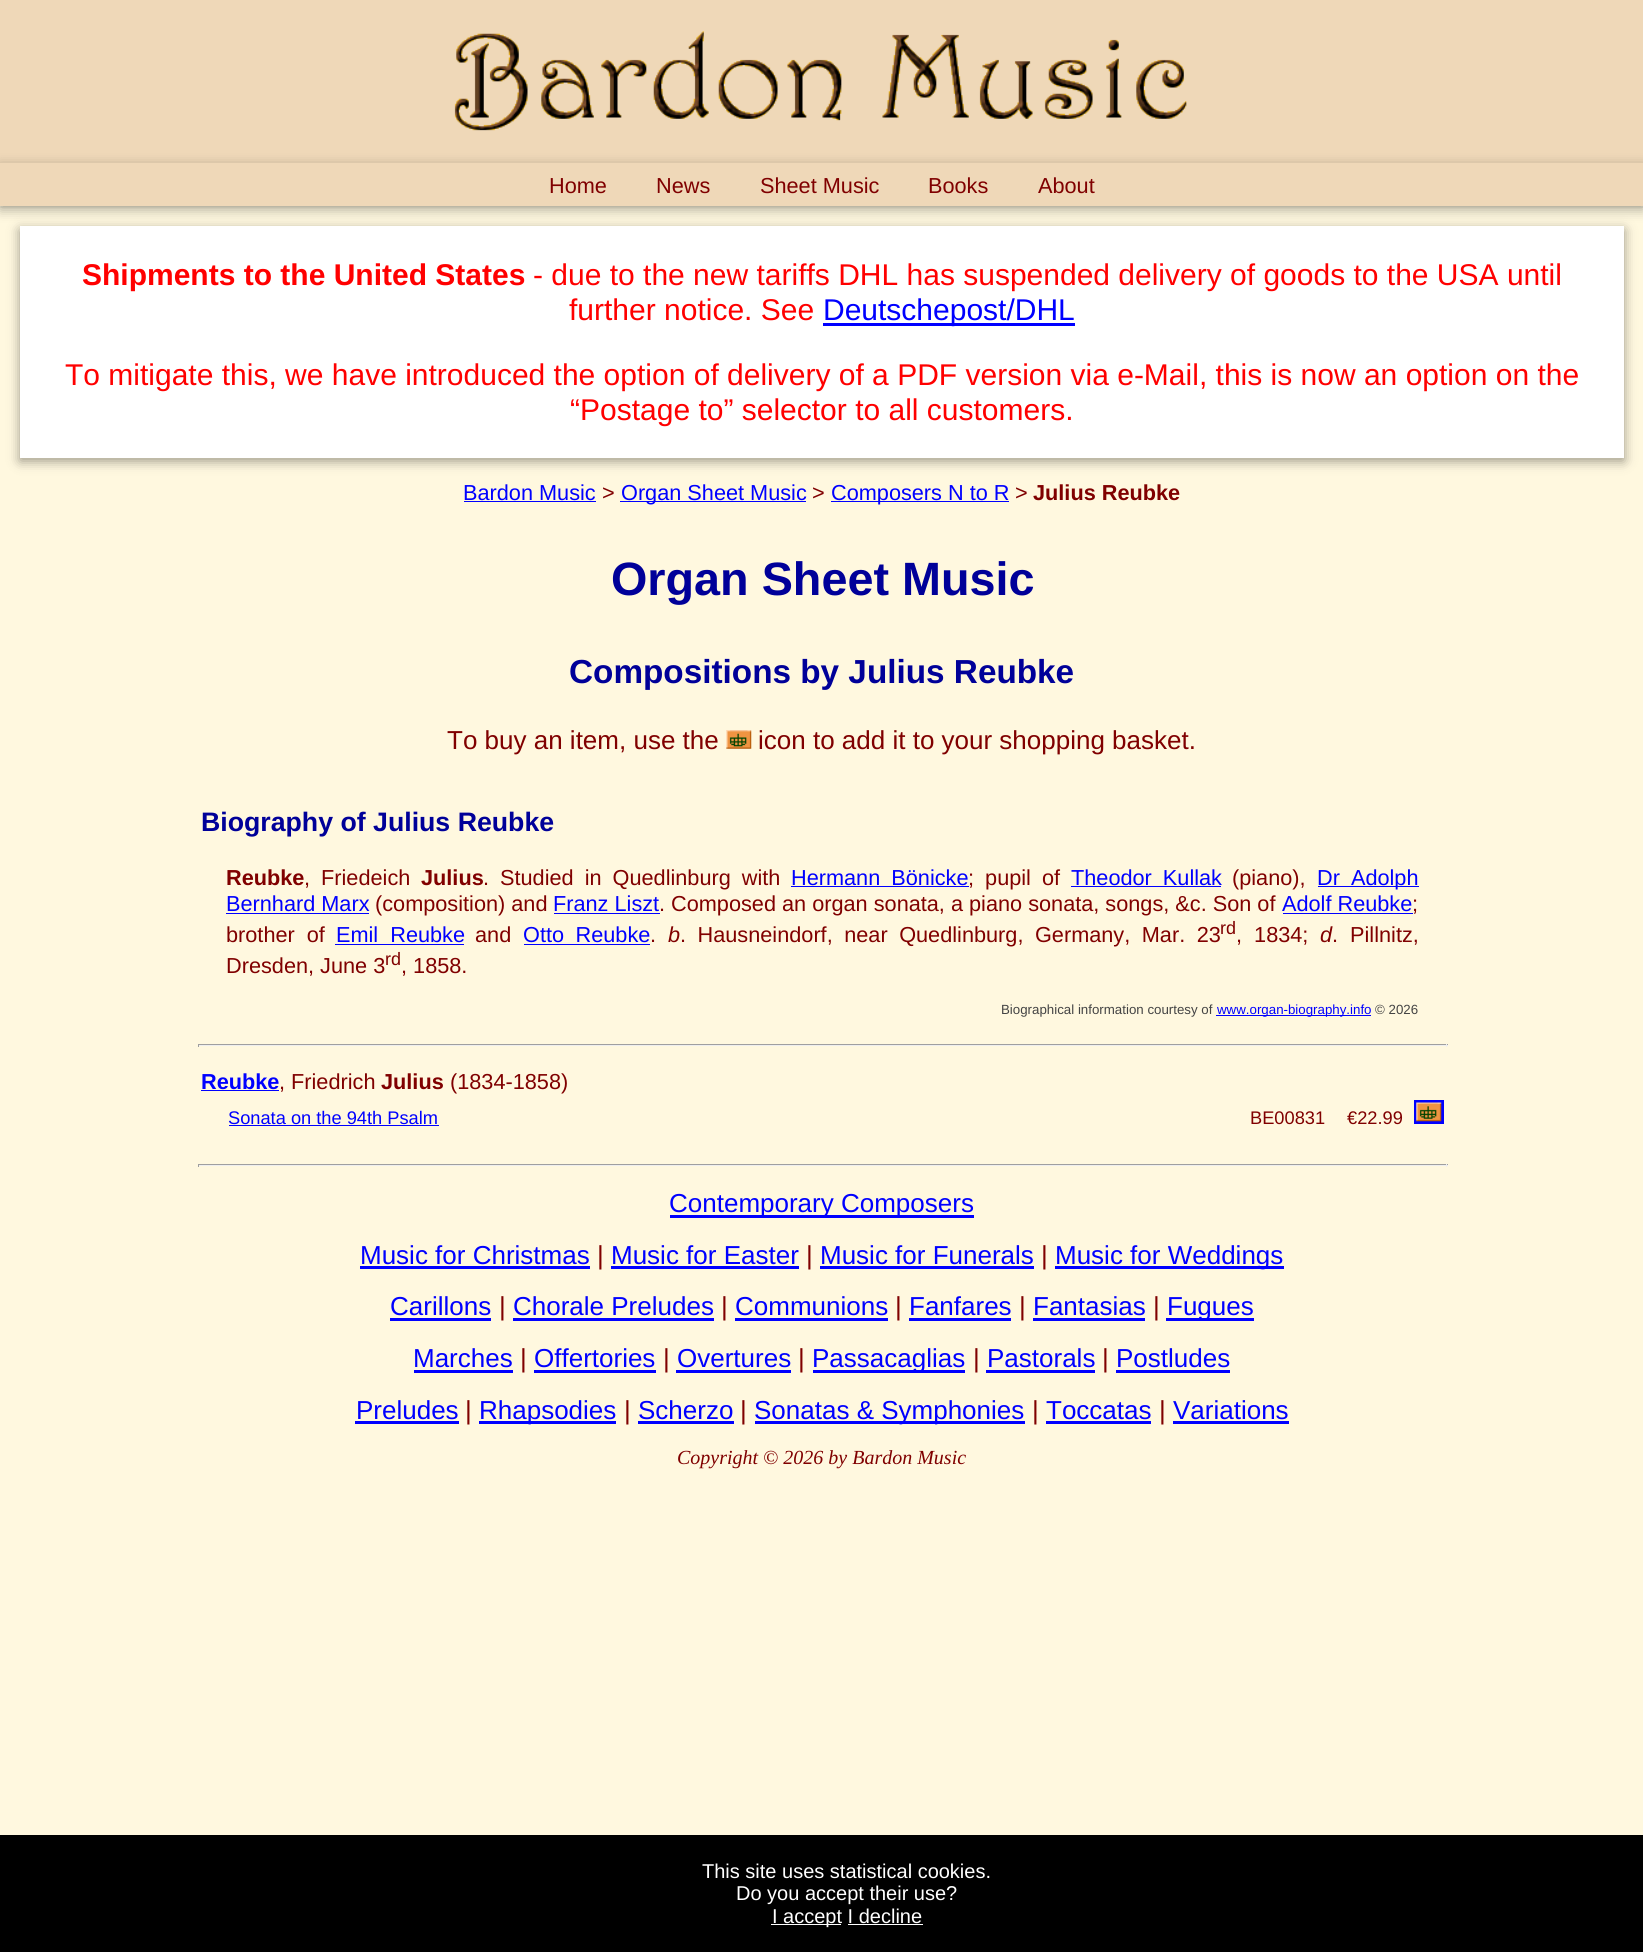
#include <cairo.h>
#include <math.h>
#include <stddef.h>


static void rgb(cairo_t *cr, int r, int g, int b)
{
	cairo_set_source_rgb(cr, r / 255.0, g / 255.0, b / 255.0);
}

static void face(cairo_t *cr, const char *family, double size, int italic, int bold)
{
	cairo_select_font_face(cr, family, italic ? CAIRO_FONT_SLANT_ITALIC : CAIRO_FONT_SLANT_NORMAL,
		bold ? CAIRO_FONT_WEIGHT_BOLD : CAIRO_FONT_WEIGHT_NORMAL);
	cairo_set_font_size(cr, size);
}

static void label(cairo_t *cr, double x, double y, const char *s)
{
	cairo_move_to(cr, x, y);
	cairo_show_text(cr, s);
}

static void tracked(cairo_t *cr, double x, double y, const char *s, double letter, double word)
{
	cairo_move_to(cr, x, y);
	while (*s) {
		char ch[5] = {0};
		int n = 0;
		do ch[n++] = *s++; while ((*s & 0xC0) == 0x80);
		cairo_show_text(cr, ch);
		cairo_rel_move_to(cr, letter + word * (*ch == ' '), 0);
	}
}

static void rect(cairo_t *cr, double x, double y, double w, double h)
{
	cairo_rectangle(cr, x, y, w, h);
	cairo_fill(cr);
}

static void rrect(cairo_t *cr, double x, double y, double w, double h, double r)
{
	cairo_new_sub_path(cr);
	cairo_arc(cr, x + w - r, y + h - r, r, 0, M_PI / 2);
	cairo_arc(cr, x + r, y + h - r, r, M_PI / 2, M_PI);
	cairo_arc(cr, x + r, y + r, r, M_PI, 1.5 * M_PI);
	cairo_arc(cr, x + w - r, y + r, r, 1.5 * M_PI, 2 * M_PI);
	cairo_close_path(cr);
}

static void soft_shadow(cairo_t *cr, double x, double y, double w, double h, double r, double blur, double alpha)
{
	cairo_push_group_with_content(cr, CAIRO_CONTENT_ALPHA);
	cairo_set_operator(cr, CAIRO_OPERATOR_SOURCE);
	for (int i = 15; i >= -15 && fmin(w, h) + blur * i / 3 > 0; i -= 2) {
		double e = blur * i / 6;
		cairo_set_source_rgba(cr, 0, 0, 0, alpha * erfc((i - 1) / 8.5) / 2);
		rrect(cr, x - e, y - e, w + 2 * e, h + 2 * e, fmax(0, fmin(r + e + blur * .6, fmin(w, h) / 2 + e)));
		cairo_fill(cr);
	}
	cairo_pattern_t *soft = cairo_pop_group(cr);
	cairo_mask(cr, soft);
	cairo_pattern_destroy(soft);
}

static void image(cairo_t *cr, const char *path, double x, double y, double w, double h)
{
	cairo_surface_t *image = cairo_image_surface_create_from_png(path);
	cairo_save(cr);
	cairo_set_source_surface(cr, image, x, y);
	cairo_rectangle(cr, x, y, w, h);
	cairo_fill(cr);
	cairo_restore(cr);
	cairo_surface_destroy(image);
}

static void draw(cairo_t *cr) {
	rgb(cr, 255, 248, 223);
	cairo_paint(cr);
	rgb(cr, 239, 216, 184);
	rect(cr, 0, 0, 1643, 163);
	image(cr, "image0.png", 454, 31, 733, 100);
	rgb(cr, 242, 236, 213);
	cairo_new_path(cr);
	cairo_move_to(cr, 0, 206);
	cairo_line_to(cr, 0, 208);
	cairo_line_to(cr, 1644, 208);
	cairo_line_to(cr, 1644, 164);
	cairo_line_to(cr, 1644, 206);
	cairo_close_path(cr);
	cairo_fill(cr);
	rgb(cr, 0, 0, 0);
	soft_shadow(cr, 20, 230, 1604, 231, 0, 6, 0.4);
	rgb(cr, 255, 255, 255);
	rect(cr, 20, 226, 1604, 232);
	rgb(cr, 0, 0, 0);
	soft_shadow(cr, 0, 166, 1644, 44, 0, 6, 0.3);
	rgb(cr, 239, 216, 184);
	rect(cr, 0, 163, 1643, 43);
	face(cr, "Liberation Sans", 21.7, 0, 0);
	rgb(cr, 128, 0, 0);
	label(cr, 549, 193, "Home");
	label(cr, 656, 193, "News");
	label(cr, 760, 193, "Sheet Music");
	label(cr, 928, 193, "Books");
	label(cr, 1038, 193, "About");
	face(cr, "Liberation Sans", 30, 0, 1);
	rgb(cr, 255, 0, 0);
	label(cr, 82, 285, "Shipments to the United States");
	face(cr, "Liberation Sans", 30, 0, 0);
	label(cr, 533, 285, "- due to the new tariffs DHL has suspended delivery of goods to the USA until");
	label(cr, 569, 320, "further notice. See");
	rgb(cr, 0, 0, 255);
	rect(cr, 823, 323, 252, 3);
	label(cr, 823, 320, "Deutschepost/DHL");
	rgb(cr, 255, 0, 0);
	label(cr, 65, 385, "To mitigate this, we have introduced the option of delivery of a PDF version via e-Mail, this is now an option on the");
	label(cr, 570, 420, "“Postage to” selector to all customers.");
	face(cr, "Liberation Sans", 21.7, 0, 0);
	rgb(cr, 0, 0, 255);
	label(cr, 463, 500, "Bardon Music");
	rect(cr, 464, 501, 132, 1);
	rgb(cr, 128, 0, 0);
	label(cr, 602, 500, ">");
	rgb(cr, 0, 0, 255);
	rect(cr, 620, 501, 186, 1);
	label(cr, 621, 500, "Organ Sheet Music");
	rgb(cr, 128, 0, 0);
	label(cr, 812, 500, ">");
	rgb(cr, 0, 0, 255);
	rect(cr, 831, 501, 178, 1);
	label(cr, 831, 500, "Composers N to R");
	rgb(cr, 128, 0, 0);
	label(cr, 1015, 500, ">");
	face(cr, "Liberation Sans", 21.7, 0, 1);
	label(cr, 1033, 500, "Julius Reubke");
	face(cr, "Liberation Sans", 46.75, 0, 1);
	rgb(cr, 0, 0, 153);
	label(cr, 611, 595, "Organ Sheet Music");
	face(cr, "Liberation Sans", 33.3, 0, 1);
	label(cr, 569, 683, "Compositions by Julius Reubke");
	face(cr, "Liberation Sans", 26, 0, 0);
	rgb(cr, 128, 0, 0);
	label(cr, 447, 749, "To buy an item, use the");
	image(cr, "image1.png", 726, 730, 26, 19);
	label(cr, 758, 749, "icon to add it to your shopping basket.");
	face(cr, "Liberation Sans", 26.7, 0, 1);
	rgb(cr, 0, 0, 153);
	label(cr, 201, 831, "Biography of Julius Reubke");
	face(cr, "Liberation Sans", 21.7, 0, 1);
	rgb(cr, 128, 0, 0);
	label(cr, 226, 885, "Reubke");
	face(cr, "Liberation Sans", 21.7, 0, 0);
	tracked(cr, 304, 885, ", Friedeich", 0, 5);
	face(cr, "Liberation Sans", 21.7, 0, 1);
	label(cr, 421, 885, "Julius");
	face(cr, "Liberation Sans", 21.7, 0, 0);
	label(cr, 483, 885, ".");
	tracked(cr, 500, 885, "Studied in Quedlinburg with", 0, 5);
	rgb(cr, 0, 0, 255);
	tracked(cr, 791, 885, "Hermann Bönicke", 0, 5);
	rect(cr, 791, 886, 178, 1);
	rgb(cr, 128, 0, 0);
	tracked(cr, 968, 885, "; pupil of", 0, 5);
	rgb(cr, 0, 0, 255);
	tracked(cr, 1071, 885, "Theodor Kullak", 0, 5);
	rect(cr, 1071, 886, 150, 1);
	rgb(cr, 128, 0, 0);
	label(cr, 1232, 885, "(piano),");
	rgb(cr, 0, 0, 255);
	rect(cr, 1318, 886, 101, 1);
	tracked(cr, 1317, 885, "Dr Adolph", 0, 5);
	label(cr, 226, 911, "Bernhard Marx");
	rect(cr, 226, 913, 143, 1);
	rgb(cr, 128, 0, 0);
	label(cr, 375, 911, "(composition) and");
	rgb(cr, 0, 0, 255);
	label(cr, 553, 911, "Franz Liszt");
	rect(cr, 554, 913, 106, 1);
	rgb(cr, 128, 0, 0);
	label(cr, 659, 911, ". Composed an organ sonata, a piano sonata, songs, &c. Son of");
	rgb(cr, 0, 0, 255);
	label(cr, 1282, 911, "Adolf Reubke");
	rect(cr, 1283, 913, 130, 1);
	rgb(cr, 128, 0, 0);
	label(cr, 1412, 911, ";");
	tracked(cr, 226, 942, "brother of", 0, 6);
	rgb(cr, 0, 0, 255);
	tracked(cr, 336, 942, "Emil Reubke", 0, 6);
	rect(cr, 335, 944, 129, 1);
	rgb(cr, 128, 0, 0);
	label(cr, 475, 942, "and");
	rgb(cr, 0, 0, 255);
	tracked(cr, 523, 942, "Otto Reubke", 0, 5.5);
	rect(cr, 524, 944, 126, 1);
	rgb(cr, 128, 0, 0);
	label(cr, 650, 942, ".");
	face(cr, "Liberation Sans", 21.7, 1, 0);
	label(cr, 668, 942, "b");
	face(cr, "Liberation Sans", 21.7, 0, 0);
	tracked(cr, 680, 942, ". Hausneindorf, near Quedlinburg, Germany, Mar. 23", 0, 5.5);
	face(cr, "Liberation Sans", 18, 0, 0);
	label(cr, 1220, 934, "rd");
	face(cr, "Liberation Sans", 21.7, 0, 0);
	tracked(cr, 1236, 942, ", 1834;", 0, 6);
	face(cr, "Liberation Sans", 21.7, 1, 0);
	label(cr, 1320, 942, "d");
	face(cr, "Liberation Sans", 21.7, 0, 0);
	tracked(cr, 1332, 942, ". Pillnitz,", 0, 6);
	label(cr, 226, 973, "Dresden, June 3");
	face(cr, "Liberation Sans", 18, 0, 0);
	label(cr, 385, 965, "rd");
	face(cr, "Liberation Sans", 21.7, 0, 0);
	label(cr, 401, 973, ", 1858.");
	face(cr, "Liberation Sans", 13.3, 0, 0);
	rgb(cr, 68, 68, 68);
	label(cr, 1001, 1014, "Biographical information courtesy of");
	rgb(cr, 0, 0, 255);
	rect(cr, 1216, 1015, 155, 1);
	label(cr, 1217, 1014, "www.organ-biography.info");
	rgb(cr, 68, 68, 68);
	label(cr, 1375, 1014, "© 2026");
	rgb(cr, 159, 159, 159);
	rect(cr, 198, 1044, 1250, 1);
	rgb(cr, 238, 238, 238);
	rect(cr, 1446, 1044, 1, 3);
	rect(cr, 198, 1045, 1250, 1);
	rgb(cr, 159, 159, 159);
	rect(cr, 198, 1044, 1, 3);
	face(cr, "Liberation Sans", 21.7, 0, 1);
	rgb(cr, 0, 0, 255);
	label(cr, 201, 1089, "Reubke");
	rect(cr, 201, 1090, 78, 1);
	face(cr, "Liberation Sans", 21.7, 0, 0);
	rgb(cr, 128, 0, 0);
	label(cr, 279, 1089, ", Friedrich");
	face(cr, "Liberation Sans", 21.7, 0, 1);
	label(cr, 381, 1089, "Julius");
	face(cr, "Liberation Sans", 21.7, 0, 0);
	label(cr, 450, 1089, "(1834-1858)");
	face(cr, "Liberation Sans", 18.25, 0, 0);
	rgb(cr, 0, 0, 255);
	label(cr, 228, 1124, "Sonata on the 94th Psalm");
	rect(cr, 229, 1125, 210, 1);
	rgb(cr, 128, 0, 0);
	label(cr, 1250, 1124, "BE00831");
	label(cr, 1347, 1124, "€22.99");
	cairo_rectangle(cr, 1415.5, 1101.5, 27, 21);
	rgb(cr, 0, 0, 255);
	cairo_set_line_width(cr, 3);
	cairo_stroke(cr);
	image(cr, "image2.png", 1416, 1102, 26, 20);
	rgb(cr, 159, 159, 159);
	rect(cr, 198, 1164, 1250, 1);
	rgb(cr, 238, 238, 238);
	rect(cr, 1446, 1164, 1, 3);
	rect(cr, 198, 1165, 1250, 1);
	rgb(cr, 159, 159, 159);
	rect(cr, 198, 1164, 1, 3);
	rgb(cr, 0, 0, 255);
	rect(cr, 670, 1215, 304, 3);
	face(cr, "Liberation Sans", 26, 0, 0);
	label(cr, 669, 1212, "Contemporary Composers");
	label(cr, 360, 1264, "Music for Christmas");
	rect(cr, 360, 1266, 230, 3);
	rgb(cr, 128, 0, 0);
	label(cr, 597, 1264, "|");
	rgb(cr, 0, 0, 255);
	label(cr, 611, 1264, "Music for Easter");
	rect(cr, 611, 1266, 188, 3);
	rgb(cr, 128, 0, 0);
	label(cr, 806, 1264, "|");
	rgb(cr, 0, 0, 255);
	label(cr, 820, 1264, "Music for Funerals");
	rect(cr, 820, 1266, 214, 3);
	rgb(cr, 128, 0, 0);
	label(cr, 1041, 1264, "|");
	rgb(cr, 0, 0, 255);
	rect(cr, 1055, 1266, 229, 3);
	label(cr, 1055, 1264, "Music for Weddings");
	label(cr, 390, 1315, "Carillons");
	rect(cr, 390, 1318, 101, 3);
	rgb(cr, 128, 0, 0);
	label(cr, 499, 1315, "|");
	rgb(cr, 0, 0, 255);
	label(cr, 513, 1315, "Chorale Preludes");
	rect(cr, 513, 1318, 201, 3);
	rgb(cr, 128, 0, 0);
	label(cr, 721, 1315, "|");
	rgb(cr, 0, 0, 255);
	label(cr, 735, 1315, "Communions");
	rect(cr, 735, 1318, 153, 3);
	rgb(cr, 128, 0, 0);
	label(cr, 895, 1315, "|");
	rgb(cr, 0, 0, 255);
	label(cr, 909, 1315, "Fanfares");
	rect(cr, 909, 1318, 102, 3);
	rgb(cr, 128, 0, 0);
	label(cr, 1019, 1315, "|");
	rgb(cr, 0, 0, 255);
	label(cr, 1033, 1315, "Fantasias");
	rect(cr, 1033, 1318, 112, 3);
	rgb(cr, 128, 0, 0);
	label(cr, 1153, 1315, "|");
	rgb(cr, 0, 0, 255);
	rect(cr, 1166, 1318, 88, 3);
	label(cr, 1167, 1315, "Fugues");
	label(cr, 413, 1367, "Marches");
	rect(cr, 414, 1370, 99, 3);
	rgb(cr, 128, 0, 0);
	label(cr, 520, 1367, "|");
	rgb(cr, 0, 0, 255);
	label(cr, 534, 1367, "Offertories");
	rect(cr, 534, 1370, 122, 3);
	rgb(cr, 128, 0, 0);
	label(cr, 663, 1367, "|");
	rgb(cr, 0, 0, 255);
	label(cr, 677, 1367, "Overtures");
	rect(cr, 676, 1370, 115, 3);
	rgb(cr, 128, 0, 0);
	label(cr, 798, 1367, "|");
	rgb(cr, 0, 0, 255);
	rect(cr, 813, 1370, 152, 3);
	label(cr, 812, 1367, "Passacaglias");
	rgb(cr, 128, 0, 0);
	label(cr, 973, 1367, "|");
	rgb(cr, 0, 0, 255);
	label(cr, 987, 1367, "Pastorals");
	rect(cr, 986, 1370, 109, 3);
	rgb(cr, 128, 0, 0);
	label(cr, 1102, 1367, "|");
	rgb(cr, 0, 0, 255);
	label(cr, 1116, 1367, "Postludes");
	rect(cr, 1116, 1370, 114, 3);
	label(cr, 356, 1419, "Preludes");
	rect(cr, 355, 1421, 104, 3);
	rgb(cr, 128, 0, 0);
	label(cr, 465, 1419, "|");
	rgb(cr, 0, 0, 255);
	rect(cr, 479, 1421, 137, 3);
	label(cr, 479, 1419, "Rhapsodies");
	rgb(cr, 128, 0, 0);
	label(cr, 624, 1419, "|");
	rgb(cr, 0, 0, 255);
	label(cr, 638, 1419, "Scherzo");
	rect(cr, 638, 1421, 96, 3);
	rgb(cr, 128, 0, 0);
	label(cr, 740, 1419, "|");
	rgb(cr, 0, 0, 255);
	rect(cr, 755, 1421, 270, 3);
	label(cr, 754, 1419, "Sonatas & Symphonies");
	rgb(cr, 128, 0, 0);
	label(cr, 1032, 1419, "|");
	rgb(cr, 0, 0, 255);
	label(cr, 1046, 1419, "Toccatas");
	rect(cr, 1046, 1421, 105, 3);
	rgb(cr, 128, 0, 0);
	label(cr, 1159, 1419, "|");
	rgb(cr, 0, 0, 255);
	label(cr, 1173, 1419, "Variations");
	rect(cr, 1173, 1421, 116, 3);
	face(cr, "Liberation Serif", 20, 1, 0);
	rgb(cr, 128, 0, 0);
	label(cr, 677, 1464, "Copyright © 2026 by Bardon Music");
	rgb(cr, 0, 0, 0);
	rect(cr, 0, 1835, 1643, 117);
	face(cr, "Liberation Sans", 20, 0, 0);
	rgb(cr, 255, 255, 255);
	label(cr, 702, 1878, "This site uses statistical cookies.");
	label(cr, 736, 1900, "Do you accept their use?");
	rect(cr, 771, 1924, 70, 1);
	label(cr, 772, 1923, "I accept I decline");
	rect(cr, 848, 1924, 75, 1);
}

int main(void) {
	cairo_surface_t *surface = cairo_image_surface_create(CAIRO_FORMAT_RGB24, 1643, 1952);
	cairo_t *cr = cairo_create(surface);
	cairo_font_options_t *options = cairo_font_options_create();
	cairo_font_options_set_hint_metrics(options, CAIRO_HINT_METRICS_OFF);
	cairo_font_options_set_hint_style(options, CAIRO_HINT_STYLE_NONE);
	cairo_set_font_options(cr, options);
	cairo_set_miter_limit(cr, 4);
	draw(cr);
	cairo_surface_write_to_png(surface, "render.png");
	cairo_font_options_destroy(options);
	cairo_destroy(cr);
	cairo_surface_destroy(surface);
	return 0;
}
